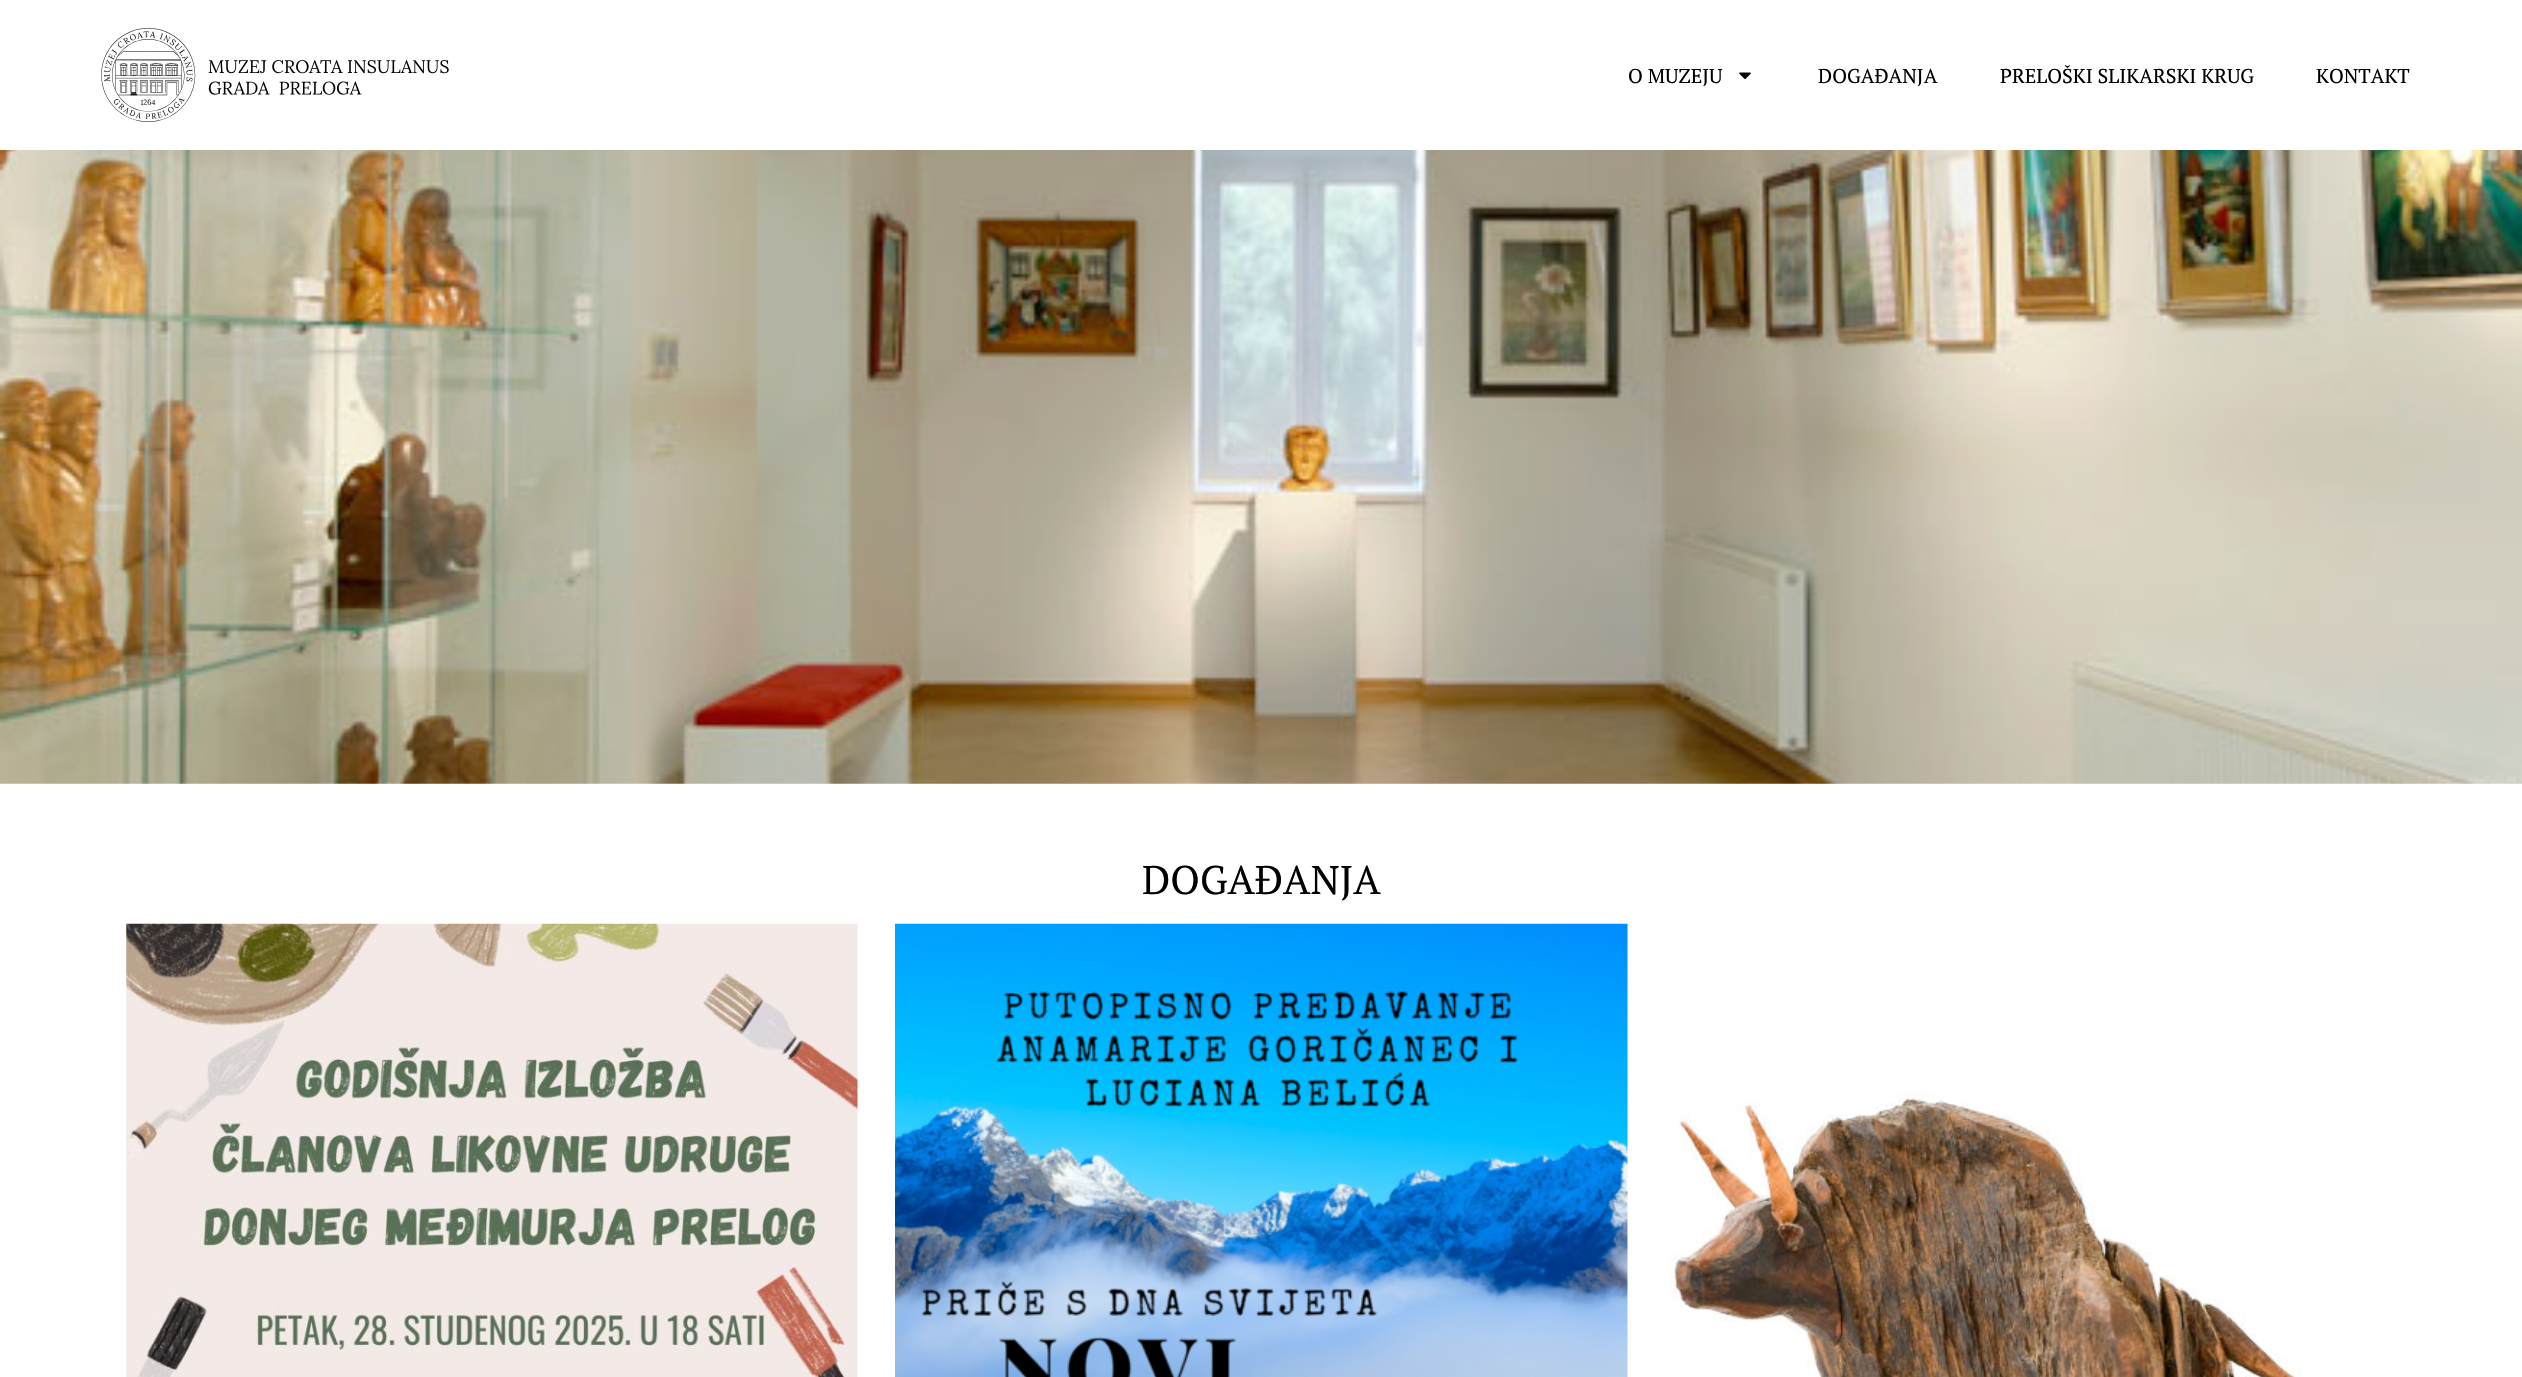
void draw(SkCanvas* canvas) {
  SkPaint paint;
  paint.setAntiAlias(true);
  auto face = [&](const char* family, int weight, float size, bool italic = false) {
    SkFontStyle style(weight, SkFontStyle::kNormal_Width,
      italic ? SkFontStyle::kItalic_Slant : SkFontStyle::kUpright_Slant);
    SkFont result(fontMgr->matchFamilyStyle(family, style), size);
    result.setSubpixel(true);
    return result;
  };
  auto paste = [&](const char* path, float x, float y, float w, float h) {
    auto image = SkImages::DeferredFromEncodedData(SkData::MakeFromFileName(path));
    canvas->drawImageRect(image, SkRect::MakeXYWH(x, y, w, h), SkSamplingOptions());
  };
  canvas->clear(0xffffffff);
  paste("img/1.png", 101, 28, 348, 94);
  paste("img/2.png", 1739, 72, 12, 7);
  paste("img/3.png", 0, 150, 2522, 634);
  paste("img/4.png", 126, 923, 732, 454);
  paste("img/5.png", 895, 923, 733, 454);
  paste("img/6.png", 1668, 1092, 634, 285);
  auto f0 = face("PT Serif", 400, 20);
  paint.setColor(0xff000000);
  {
    const struct { const char* s; float x, y; } items[] = {
      {"O MUZEJU", 1628, 83},
      {"DOGAĐANJA", 1818, 83},
      {"PRELOŠKI SLIKARSKI KRUG", 2000, 83},
      {"KONTAKT", 2316, 83},
    };
    for (auto [s, x, y] : items) {
      canvas->drawString(s, x, y, f0, paint);
    }
  }
  auto f1 = face("PT Serif", 400, 40);
  canvas->drawString("DOGAĐANJA", 1142, 894, f1, paint);
}
